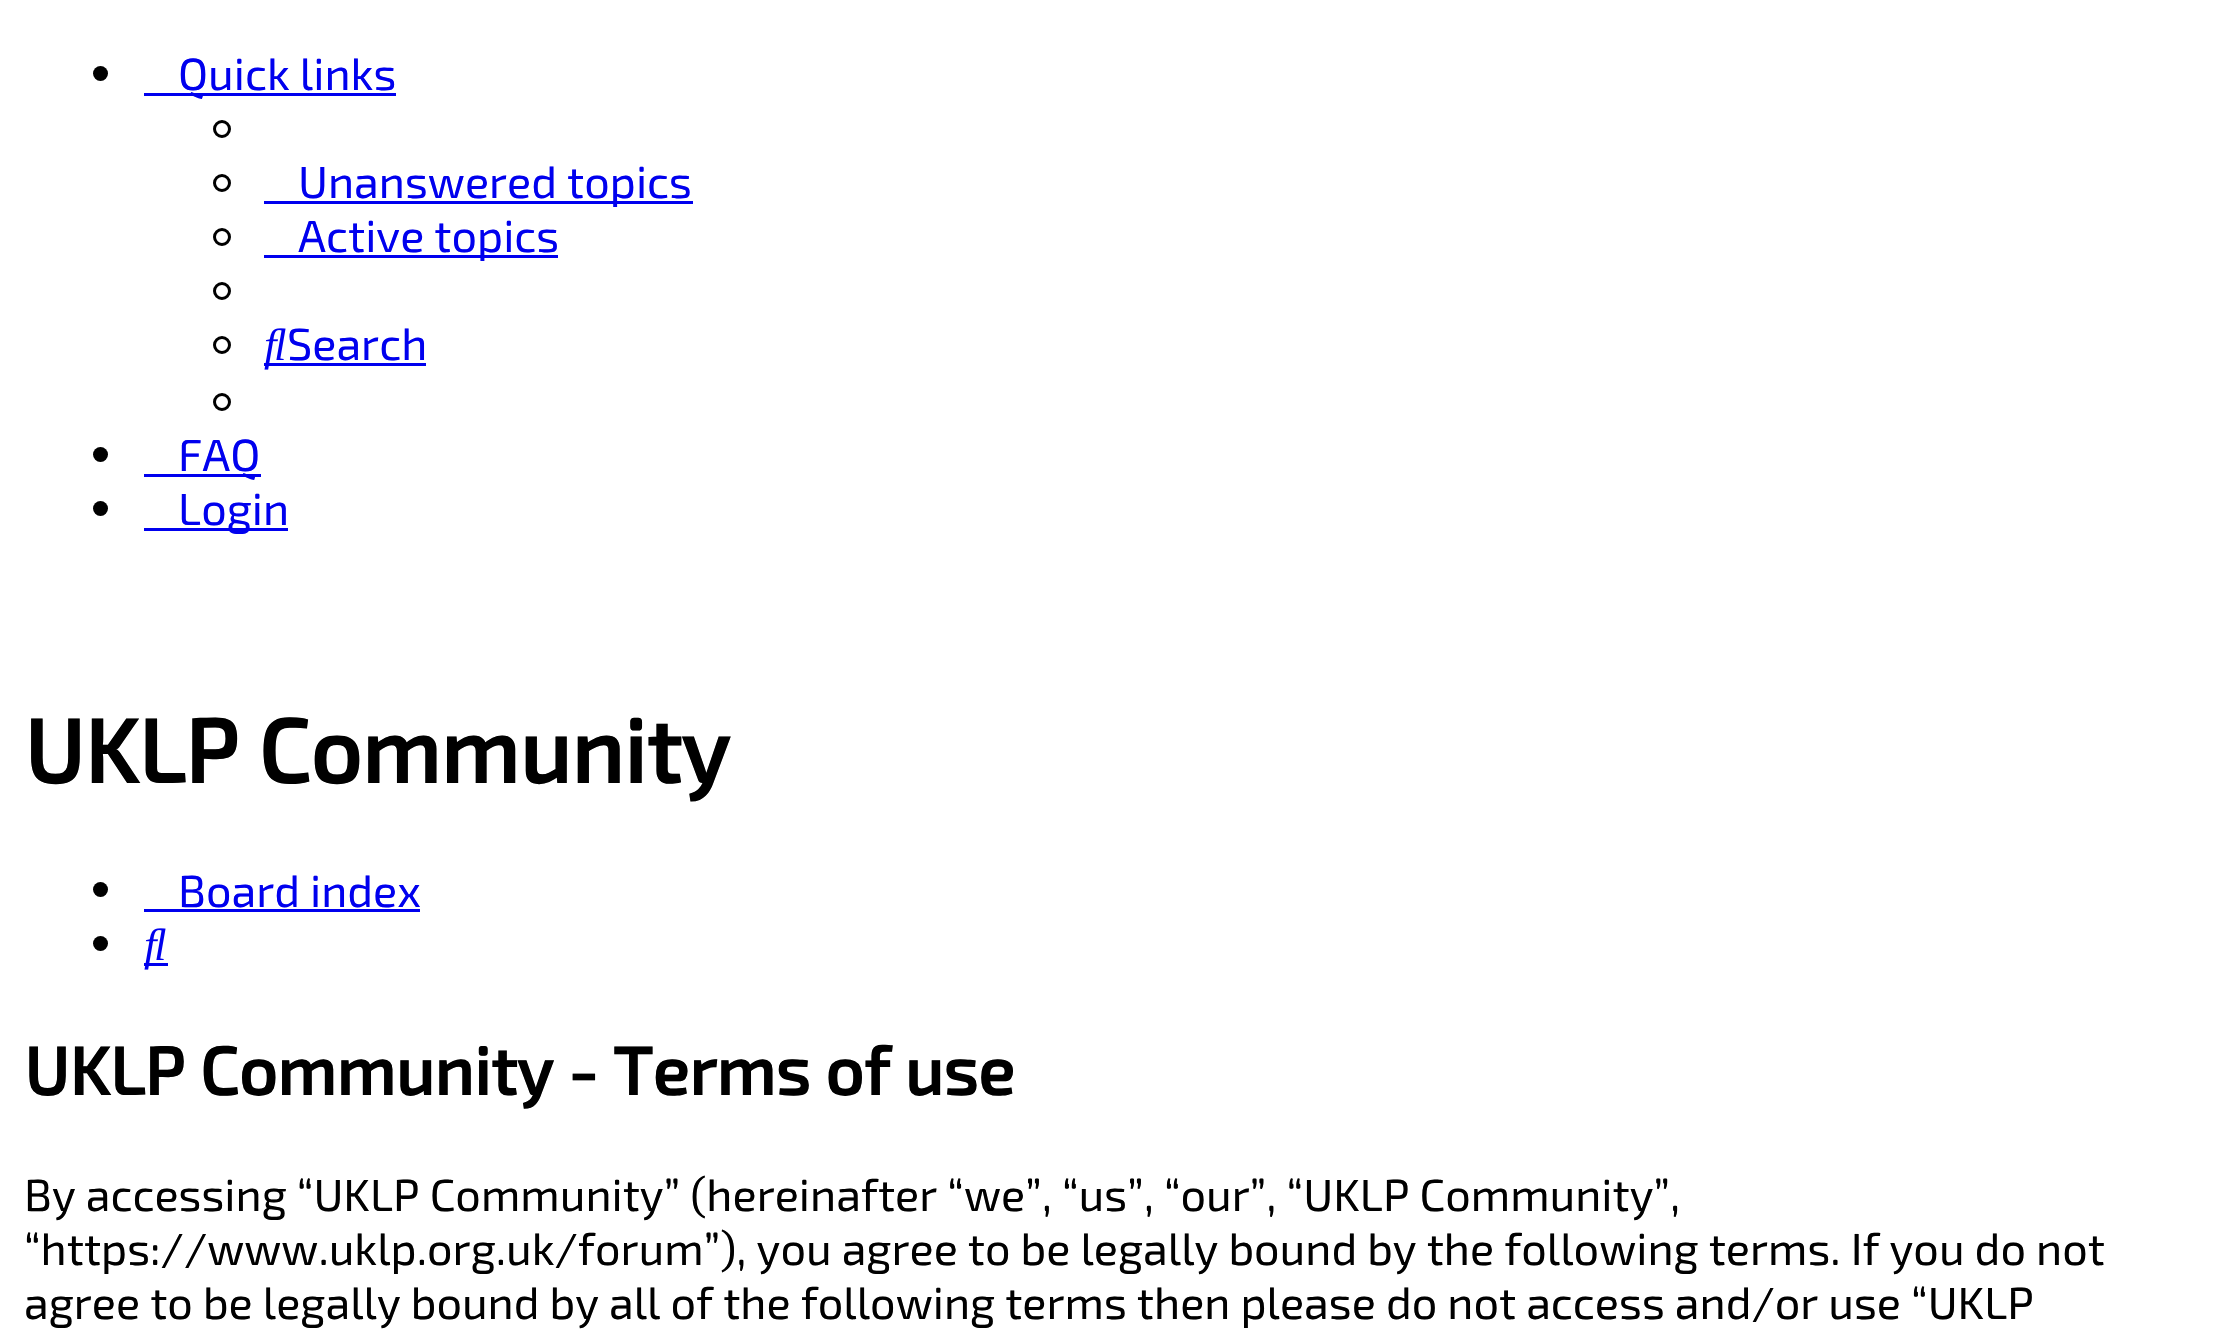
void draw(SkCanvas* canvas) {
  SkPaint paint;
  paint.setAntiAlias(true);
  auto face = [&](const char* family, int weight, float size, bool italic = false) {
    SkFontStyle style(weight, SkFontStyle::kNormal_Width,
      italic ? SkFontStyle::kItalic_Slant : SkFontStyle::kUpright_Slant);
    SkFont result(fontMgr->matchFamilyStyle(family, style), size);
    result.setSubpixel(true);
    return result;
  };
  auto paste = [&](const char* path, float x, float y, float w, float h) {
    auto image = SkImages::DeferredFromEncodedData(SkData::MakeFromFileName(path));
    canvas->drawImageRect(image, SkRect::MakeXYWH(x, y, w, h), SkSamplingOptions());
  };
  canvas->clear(0xffffffff);
  paint.setColor(0xff000000);
  canvas->drawCircle(100.5f, 73.5f, 7.5f, paint);
  paint.setColor(0xff0000ee);
  canvas->drawRect(SkRect::MakeXYWH(144, 93, 252, 3), paint);
  paint.setStroke(true);
  paint.setStrokeWidth(3);
  paint.setColor(0xff000000);
  canvas->drawCircle(222, 129, 7.5f, paint);
  canvas->drawCircle(222, 183, 7.5f, paint);
  paint.setStroke(false);
  paint.setColor(0xff0000ee);
  canvas->drawRect(SkRect::MakeXYWH(264, 201, 429, 3), paint);
  paint.setStroke(true);
  paint.setColor(0xff000000);
  canvas->drawCircle(222, 237, 7.5f, paint);
  paint.setStroke(false);
  paint.setColor(0xff0000ee);
  canvas->drawRect(SkRect::MakeXYWH(264, 255, 294, 3), paint);
  paint.setStroke(true);
  paint.setColor(0xff000000);
  canvas->drawCircle(222, 291, 7.5f, paint);
  canvas->drawCircle(222, 345, 7.5f, paint);
  paint.setStroke(false);
  paint.setColor(0xff0000ee);
  canvas->drawRect(SkRect::MakeXYWH(264, 363, 162, 3), paint);
  paste("img/1.png", 264, 328, 22, 42);
  paint.setStroke(true);
  paint.setColor(0xff000000);
  canvas->drawCircle(222, 402, 7.5f, paint);
  paint.setStroke(false);
  canvas->drawCircle(100.5f, 454.5f, 7.5f, paint);
  paint.setColor(0xff0000ee);
  canvas->drawRect(SkRect::MakeXYWH(144, 474, 117, 3), paint);
  paint.setColor(0xff000000);
  canvas->drawCircle(100.5f, 508.5f, 7.5f, paint);
  paint.setColor(0xff0000ee);
  canvas->drawRect(SkRect::MakeXYWH(144, 528, 144, 3), paint);
  paint.setColor(0xff000000);
  canvas->drawCircle(100.5f, 889.5f, 7.5f, paint);
  paint.setColor(0xff0000ee);
  canvas->drawRect(SkRect::MakeXYWH(144, 909, 276, 3), paint);
  paint.setColor(0xff000000);
  canvas->drawCircle(100.5f, 943.5f, 7.5f, paint);
  paint.setColor(0xff0000ee);
  canvas->drawRect(SkRect::MakeXYWH(144, 963, 24, 3), paint);
  paste("img/1.png", 144, 928, 22, 42);
  auto f0 = face("Exo 2", 400, 45);
  {
    const struct { const char* s; float x, y; } items[] = {
      {"Quick links", 178, 90},
      {"Unanswered topics", 298, 198},
      {"Active topics", 298, 252},
      {"Search", 287, 360},
      {"FAQ", 178, 471},
      {"Login", 178, 525},
    };
    for (auto [s, x, y] : items) {
      canvas->drawString(s, x, y, f0, paint);
    }
  }
  auto f1 = face("Exo 2", 700, 90);
  paint.setColor(0xff000000);
  canvas->drawString("UKLP Community", 24, 783, f1, paint);
  paint.setColor(0xff0000ee);
  canvas->drawString("Board index", 178, 907, f0, paint);
  auto f2 = face("Exo 2", 700, 67.5f);
  paint.setColor(0xff000000);
  canvas->drawString("UKLP Community - Terms of use", 24, 1095, f2, paint);
  {
    const struct { const char* s; float x, y; } items[] = {
      {"By accessing “UKLP Community” (hereinafter “we”, “us”, “our”, “UKLP Community”,", 24, 1211},
      {"“https://www.uklp.org.uk/forum”), you agree to be legally bound by the following terms. If you do not", 24, 1265},
      {"agree to be legally bound by all of the following terms then please do not access and/or use “UKLP", 24, 1319},
    };
    for (auto [s, x, y] : items) {
      canvas->drawString(s, x, y, f0, paint);
    }
  }
}
